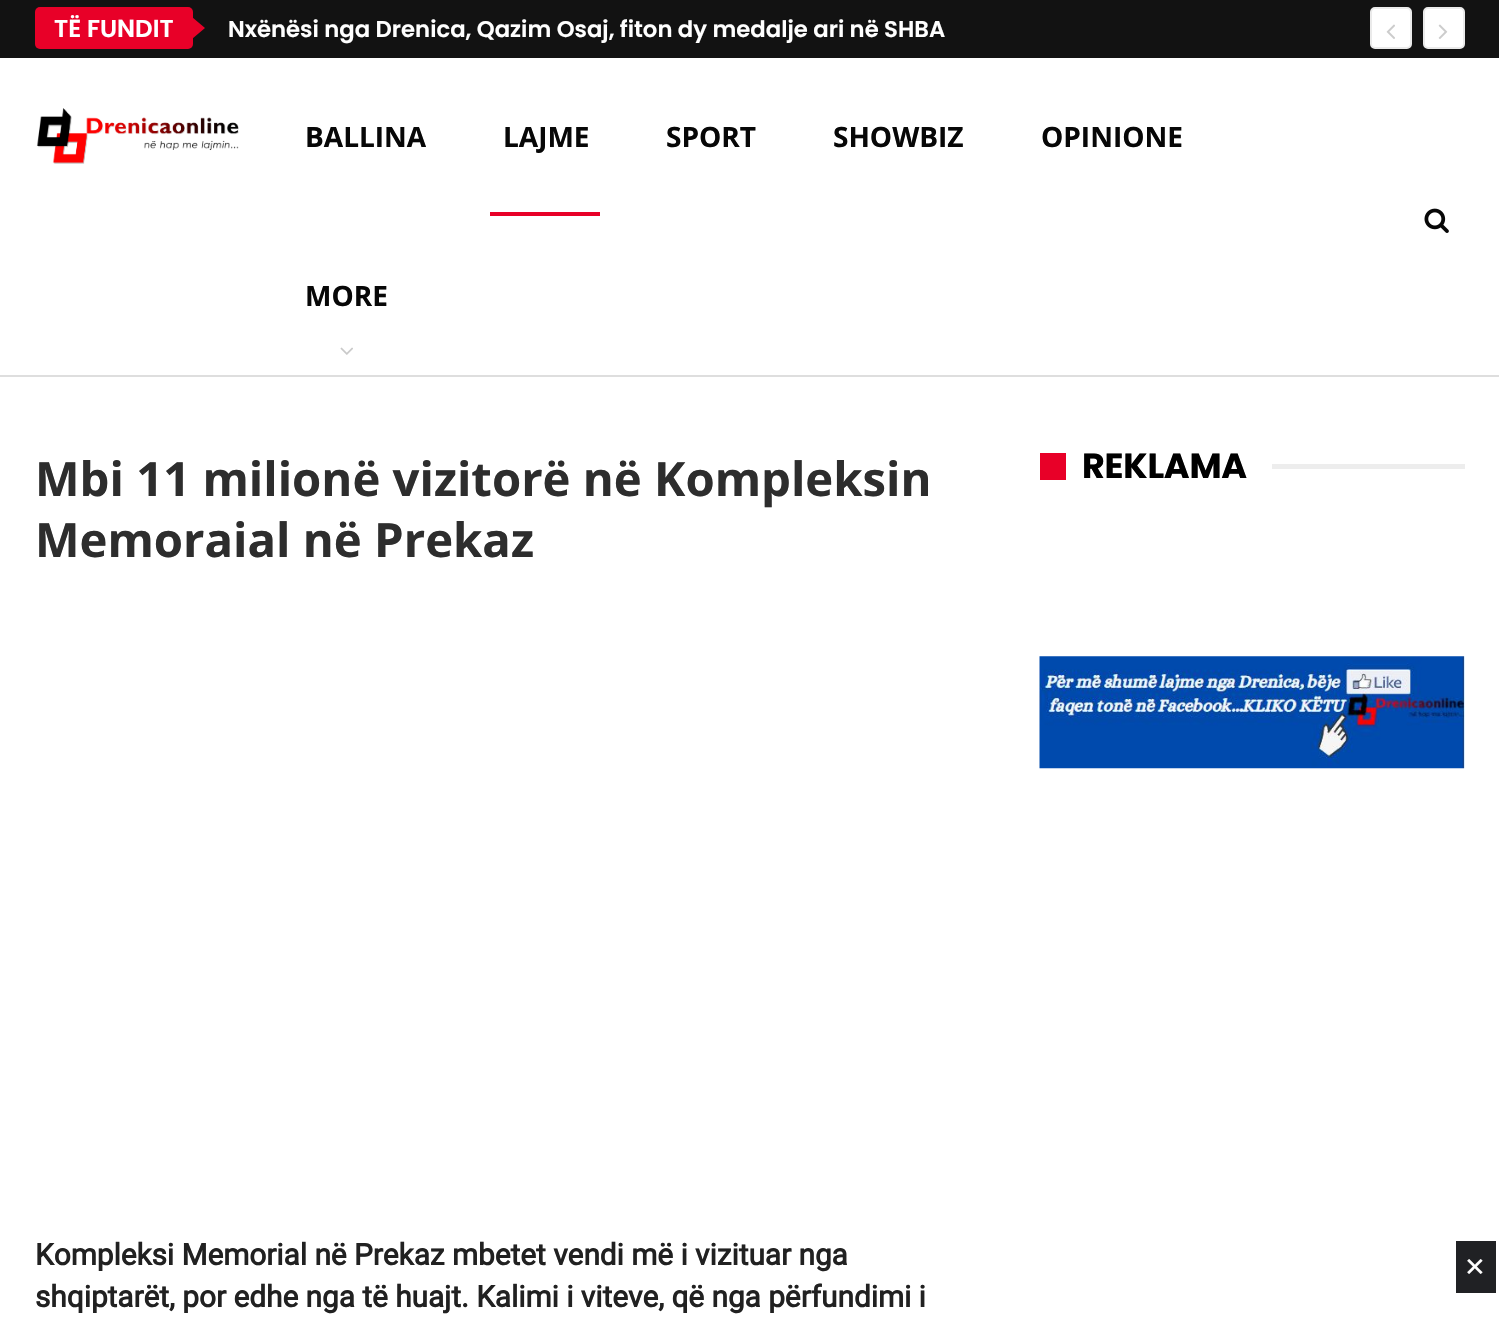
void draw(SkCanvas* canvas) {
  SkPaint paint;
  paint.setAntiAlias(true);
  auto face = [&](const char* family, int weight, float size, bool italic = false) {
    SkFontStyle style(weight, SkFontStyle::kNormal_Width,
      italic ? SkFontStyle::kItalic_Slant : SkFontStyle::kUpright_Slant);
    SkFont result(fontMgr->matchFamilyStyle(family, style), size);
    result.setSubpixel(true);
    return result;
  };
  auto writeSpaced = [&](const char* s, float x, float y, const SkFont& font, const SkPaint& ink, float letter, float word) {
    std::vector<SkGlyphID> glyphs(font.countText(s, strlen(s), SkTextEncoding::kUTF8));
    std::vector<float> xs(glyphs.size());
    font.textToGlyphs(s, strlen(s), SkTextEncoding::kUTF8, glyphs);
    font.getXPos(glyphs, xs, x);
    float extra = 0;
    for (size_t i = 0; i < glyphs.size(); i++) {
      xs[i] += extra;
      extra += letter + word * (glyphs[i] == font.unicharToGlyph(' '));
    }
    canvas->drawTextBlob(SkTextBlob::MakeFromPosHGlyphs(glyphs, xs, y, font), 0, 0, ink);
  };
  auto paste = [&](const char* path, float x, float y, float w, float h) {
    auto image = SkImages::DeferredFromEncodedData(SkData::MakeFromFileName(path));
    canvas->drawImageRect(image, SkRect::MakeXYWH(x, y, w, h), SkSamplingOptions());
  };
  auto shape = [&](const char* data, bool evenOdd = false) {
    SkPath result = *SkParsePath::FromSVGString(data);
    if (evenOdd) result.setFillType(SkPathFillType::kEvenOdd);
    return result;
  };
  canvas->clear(0xffffffff);
  paint.setColor(0xffdedede);
  canvas->drawRect(SkRect::MakeXYWH(0, 375, 1499, 2), paint);
  paint.setColor(0xff121212);
  canvas->drawRect(SkRect::MakeXYWH(0, 0, 1499, 58), paint);
  paint.setColor(0xffe80028);
  canvas->drawRoundRect(SkRect::MakeXYWH(35, 7, 158, 42), 5, 5, paint);
  canvas->drawPath(shape("M192.5 38.5V17.5L205 28Z"), paint);
  paint.setColor(0xffffffff);
  canvas->drawRoundRect(SkRect::MakeXYWH(1371, 8, 40, 40), 4, 4, paint);
  paint.setStroke(true);
  paint.setStrokeWidth(2);
  paint.setColor(0xffeaeaea);
  canvas->drawRoundRect(SkRect::MakeXYWH(1371, 8, 40, 40), 4, 4, paint);
  paste("img/1.png", 1386, 24, 9, 15);
  paint.setStroke(false);
  paint.setColor(0xffffffff);
  canvas->drawRoundRect(SkRect::MakeXYWH(1424, 8, 40, 40), 4, 4, paint);
  paint.setStroke(true);
  paint.setColor(0xffeaeaea);
  canvas->drawRoundRect(SkRect::MakeXYWH(1424, 8, 40, 40), 4, 4, paint);
  paste("img/2.png", 1438, 24, 10, 15);
  paste("img/3.png", 36, 108, 203, 56);
  paint.setStroke(false);
  paint.setColor(0xffe80028);
  canvas->drawRect(SkRect::MakeXYWH(490, 212, 110, 4), paint);
  paste("img/4.png", 340, 347, 13, 8);
  paste("img/5.png", 1424, 208, 25, 25);
  canvas->drawRect(SkRect::MakeXYWH(1040, 453, 26, 27), paint);
  paint.setColor(0xffededed);
  canvas->drawRect(SkRect::MakeXYWH(1272, 464, 193, 5), paint);
  paste("img/6.png", 1039, 656, 426, 113);
  paint.setColor(0xff202124);
  canvas->drawRect(SkRect::MakeXYWH(1456, 1241, 40, 52), paint);
  auto f0 = face("Poppins", 600, 24.5f);
  paint.setColor(0xffffffff);
  canvas->drawString("TË FUNDIT", 54, 37, f0, paint);
  auto f1 = face("Poppins", 600, 22.75f);
  canvas->drawString("Nxënësi nga Drenica, Qazim Osaj, fiton dy medalje ari në SHBA", 228, 37, f1, paint);
  auto f2 = face("Open Sans", 700, 28);
  paint.setColor(0xff070707);
  {
    const struct { const char* s; float x, y; } items[] = {
      {"BALLINA", 305, 147},
      {"LAJME", 503, 147},
      {"SPORT", 666, 147},
      {"SHOWBIZ", 833, 147},
      {"OPINIONE", 1041, 147},
      {"MORE", 305, 306},
    };
    for (auto [s, x, y] : items) {
      canvas->drawString(s, x, y, f2, paint);
    }
  }
  auto f3 = face("Open Sans", 700, 47.25f);
  paint.setColor(0xff2d2d2d);
  canvas->drawString("Mbi 11 milionë vizitorë në Kompleksin", 35, 496, f3, paint);
  canvas->drawString("Memoraial në Prekaz", 35, 557, f3, paint);
  auto f4 = face("Roboto", 700, 29.75f);
  paint.setColor(0xff212121);
  canvas->drawString("Kompleksi Memorial në Prekaz mbetet vendi më i vizituar nga", 35, 1265, f4, paint);
  canvas->drawString("shqiptarët, por edhe nga të huajt. Kalimi i viteve, që nga përfundimi i", 35, 1307, f4, paint);
  auto f5 = face("Poppins", 700, 35);
  paint.setColor(0xff000000);
  writeSpaced("REKLAMA", 1082, 478, f5, paint, -0.25f, 0);
  auto f6 = face("DejaVu Sans", 400, 26);
  paint.setColor(0xffffffff);
  canvas->drawString("✕", 1464, 1276, f6, paint);
}
